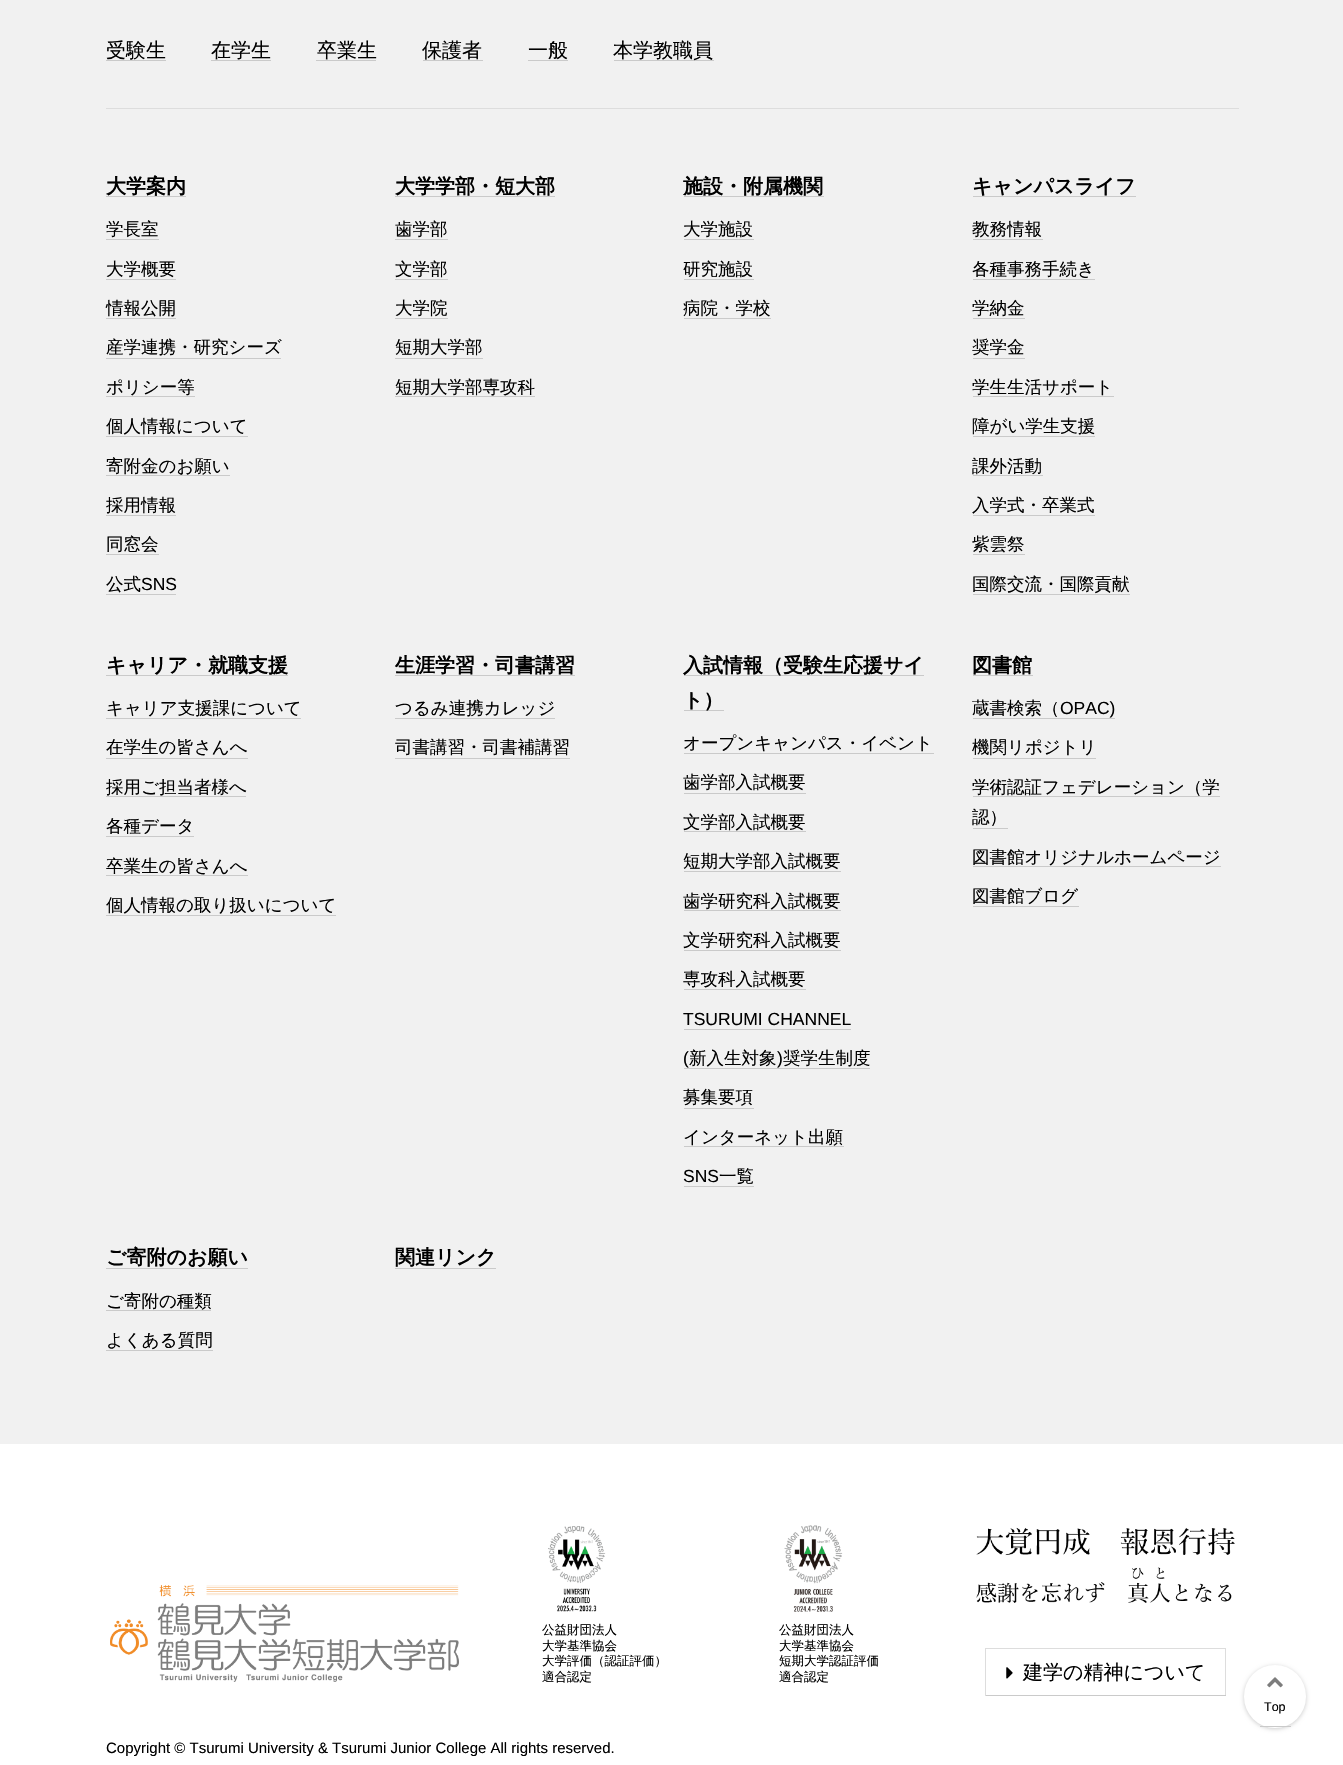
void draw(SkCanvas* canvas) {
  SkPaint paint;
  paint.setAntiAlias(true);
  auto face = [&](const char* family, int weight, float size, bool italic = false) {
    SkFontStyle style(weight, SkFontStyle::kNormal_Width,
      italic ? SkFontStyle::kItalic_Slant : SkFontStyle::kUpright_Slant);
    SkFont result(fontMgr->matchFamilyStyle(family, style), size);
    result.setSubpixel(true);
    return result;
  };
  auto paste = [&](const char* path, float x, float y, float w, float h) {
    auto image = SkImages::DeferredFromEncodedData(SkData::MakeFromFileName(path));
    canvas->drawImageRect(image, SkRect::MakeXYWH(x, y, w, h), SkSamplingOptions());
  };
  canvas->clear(0xffffffff);
  {
    const struct { float x, y, w, h; SkColor color; } items[] = {
      {0, 0, 1343, 1444, 0xfff1f1f1},
      {106, 108, 1133, 1, 0xffdddddd},
      {106, 60, 60, 1, 0xffcacaca},
      {211, 60, 60, 1, 0xffcacaca},
      {316, 60, 60, 1, 0xffcacaca},
      {423, 60, 60, 1, 0xffcacaca},
      {528, 60, 40, 1, 0xffcacaca},
      {614, 60, 100, 1, 0xffcacaca},
      {106, 196, 80, 1, 0xffcacaca},
      {106, 239, 53, 1, 0xffcacaca},
      {106, 279, 70, 1, 0xffcacaca},
      {106, 318, 70, 1, 0xffcacaca},
      {106, 358, 175, 1, 0xffcacaca},
      {106, 396, 89, 1, 0xffcacaca},
      {106, 436, 142, 1, 0xffcacaca},
      {106, 475, 124, 1, 0xffcacaca},
      {106, 515, 70, 1, 0xffcacaca},
      {106, 554, 53, 1, 0xffcacaca},
      {106, 594, 70, 1, 0xffcacaca},
      {395, 196, 160, 1, 0xffcacaca},
      {395, 239, 53, 1, 0xffcacaca},
      {395, 279, 53, 1, 0xffcacaca},
      {395, 318, 53, 1, 0xffcacaca},
      {395, 358, 88, 1, 0xffcacaca},
      {395, 396, 140, 1, 0xffcacaca},
      {684, 196, 140, 1, 0xffcacaca},
      {684, 239, 70, 1, 0xffcacaca},
      {684, 279, 70, 1, 0xffcacaca},
      {684, 318, 87, 1, 0xffcacaca},
      {973, 196, 163, 1, 0xffcacaca},
      {973, 239, 70, 1, 0xffcacaca},
      {973, 279, 122, 1, 0xffcacaca},
      {973, 318, 52, 1, 0xffcacaca},
      {973, 358, 52, 1, 0xffcacaca},
      {973, 396, 141, 1, 0xffcacaca},
      {973, 436, 122, 1, 0xffcacaca},
      {973, 475, 70, 1, 0xffcacaca},
      {973, 515, 122, 1, 0xffcacaca},
      {973, 554, 52, 1, 0xffcacaca},
      {973, 594, 157, 1, 0xffcacaca},
      {106, 675, 182, 1, 0xffcacaca},
      {106, 718, 195, 1, 0xffcacaca},
      {106, 758, 142, 1, 0xffcacaca},
      {106, 796, 140, 1, 0xffcacaca},
      {106, 836, 88, 1, 0xffcacaca},
      {106, 875, 142, 1, 0xffcacaca},
      {106, 915, 230, 1, 0xffcacaca},
      {395, 675, 180, 1, 0xffcacaca},
      {395, 718, 160, 1, 0xffcacaca},
      {395, 758, 175, 1, 0xffcacaca},
      {684, 675, 240, 1, 0xffcacaca},
      {684, 710, 40, 1, 0xffcacaca},
      {684, 753, 250, 1, 0xffcacaca},
      {684, 793, 122, 1, 0xffcacaca},
      {684, 831, 122, 1, 0xffcacaca},
      {684, 871, 157, 1, 0xffcacaca},
      {684, 910, 157, 1, 0xffcacaca},
      {684, 950, 157, 1, 0xffcacaca},
      {684, 989, 122, 1, 0xffcacaca},
      {684, 1029, 167, 1, 0xffcacaca},
      {684, 1068, 186, 1, 0xffcacaca},
      {684, 1108, 70, 1, 0xffcacaca},
      {684, 1146, 160, 1, 0xffcacaca},
      {684, 1186, 70, 1, 0xffcacaca},
      {973, 675, 60, 1, 0xffcacaca},
      {973, 718, 142, 1, 0xffcacaca},
      {973, 758, 123, 1, 0xffcacaca},
      {973, 796, 247, 1, 0xffcacaca},
      {973, 828, 35, 1, 0xffcacaca},
      {973, 866, 248, 1, 0xffcacaca},
      {973, 906, 106, 1, 0xffcacaca},
      {106, 1268, 142, 1, 0xffcacaca},
      {106, 1310, 105, 1, 0xffcacaca},
      {106, 1350, 107, 1, 0xffcacaca},
      {395, 1268, 101, 1, 0xffcacaca},
    };
    for (auto [x, y, w, h, color] : items) {
      paint.setColor(color);
      canvas->drawRect(SkRect::MakeXYWH(x, y, w, h), paint);
    }
  }
  paste("img/1.png", 110, 1585, 349, 97);
  paste("img/2.png", 548, 1526, 58, 86);
  paste("img/3.png", 784, 1525, 59, 87);
  paste("img/4.png", 976, 1527, 259, 76);
  {
    const struct { float x, y, w, h; SkColor color; } items[] = {
      {985, 1648, 241, 1, 0xffdddddd},
      {1225, 1648, 1, 48, 0xffdddddd},
      {985, 1695, 241, 1, 0xffcacaca},
      {985, 1648, 1, 48, 0xffdddddd},
    };
    for (auto [x, y, w, h, color] : items) {
      paint.setColor(color);
      canvas->drawRect(SkRect::MakeXYWH(x, y, w, h), paint);
    }
  }
  paste("img/5.png", 1006, 1667, 7, 12);
  paint.setColor(0x33000000);
  paint.setMaskFilter(SkMaskFilter::MakeBlur(kNormal_SkBlurStyle, 2));
  canvas->drawRoundRect(SkRect::MakeXYWH(1244, 1666, 62, 63), 31, 31, paint);
  paint.setMaskFilter(nullptr);
  paint.setColor(0xffffffff);
  canvas->drawRoundRect(SkRect::MakeXYWH(1244, 1665, 62, 63), 31, 31, paint);
  paint.setColor(0xffcacaca);
  canvas->drawRect(SkRect::MakeXYWH(1260, 1726, 31, 1), paint);
  paste("img/6.png", 1267, 1677, 16, 11);
  auto f0 = face("WenQuanYi Zen Hei", 500, 20);
  paint.setColor(0xff000000);
  {
    const struct { const char* s; float x, y; } items[] = {
      {"受験生", 106, 57},
      {"在学生", 211, 57},
      {"卒業生", 317, 57},
      {"保護者", 422, 57},
      {"一般", 528, 57},
      {"本学教職員", 613, 57},
    };
    for (auto [s, x, y] : items) {
      canvas->drawString(s, x, y, f0, paint);
    }
  }
  auto f1 = face("WenQuanYi Zen Hei", 700, 20);
  canvas->drawString("大学案内", 106, 193, f1, paint);
  auto f2 = face("WenQuanYi Zen Hei", 500, 17.5f);
  {
    const struct { const char* s; float x, y; } items[] = {
      {"学長室", 106, 235},
      {"大学概要", 106, 275},
      {"情報公開", 106, 314},
      {"産学連携・研究シーズ", 106, 353},
      {"ポリシー等", 106, 393},
      {"個人情報について", 106, 432},
      {"寄附金のお願い", 106, 472},
      {"採用情報", 106, 511},
      {"同窓会", 106, 550},
      {"公式", 106, 590},
    };
    for (auto [s, x, y] : items) {
      canvas->drawString(s, x, y, f2, paint);
    }
  }
  auto f3 = face("Liberation Sans", 400, 17.5f);
  canvas->drawString("SNS", 141, 590, f3, paint);
  canvas->drawString("大学学部・短大部", 395, 193, f1, paint);
  {
    const struct { const char* s; float x, y; } items[] = {
      {"歯学部", 395, 235},
      {"文学部", 395, 275},
      {"大学院", 395, 314},
      {"短期大学部", 395, 353},
      {"短期大学部専攻科", 395, 393},
    };
    for (auto [s, x, y] : items) {
      canvas->drawString(s, x, y, f2, paint);
    }
  }
  canvas->drawString("施設・附属機関", 683, 193, f1, paint);
  {
    const struct { const char* s; float x, y; } items[] = {
      {"大学施設", 683, 235},
      {"研究施設", 683, 275},
      {"病院・学校", 683, 314},
    };
    for (auto [s, x, y] : items) {
      canvas->drawString(s, x, y, f2, paint);
    }
  }
  canvas->drawString("キャンパスライフ", 972, 193, f1, paint);
  {
    const struct { const char* s; float x, y; } items[] = {
      {"教務情報", 972, 235},
      {"各種事務手続き", 972, 275},
      {"学納金", 972, 314},
      {"奨学金", 972, 353},
      {"学生生活サポート", 972, 393},
      {"障がい学生支援", 972, 432},
      {"課外活動", 972, 472},
      {"入学式・卒業式", 972, 511},
      {"紫雲祭", 972, 550},
      {"国際交流・国際貢献", 972, 590},
    };
    for (auto [s, x, y] : items) {
      canvas->drawString(s, x, y, f2, paint);
    }
  }
  canvas->drawString("キャリア・就職支援", 106, 672, f1, paint);
  {
    const struct { const char* s; float x, y; } items[] = {
      {"キャリア支援課について", 106, 714},
      {"在学生の皆さんへ", 106, 753},
      {"採用ご担当者様へ", 106, 793},
      {"各種データ", 106, 832},
      {"卒業生の皆さんへ", 106, 872},
      {"個人情報の取り扱いについて", 106, 911},
    };
    for (auto [s, x, y] : items) {
      canvas->drawString(s, x, y, f2, paint);
    }
  }
  canvas->drawString("生涯学習・司書講習", 395, 672, f1, paint);
  canvas->drawString("つるみ連携カレッジ", 395, 714, f2, paint);
  canvas->drawString("司書講習・司書補講習", 395, 753, f2, paint);
  canvas->drawString("入試情報（受験生応援サイ", 683, 672, f1, paint);
  canvas->drawString("ト）", 683, 707, f1, paint);
  {
    const struct { const char* s; float x, y; } items[] = {
      {"オープンキャンパス・イベント", 683, 749},
      {"歯学部入試概要", 683, 788},
      {"文学部入試概要", 683, 828},
      {"短期大学部入試概要", 683, 867},
      {"歯学研究科入試概要", 683, 907},
      {"文学研究科入試概要", 683, 946},
      {"専攻科入試概要", 683, 985},
    };
    for (auto [s, x, y] : items) {
      canvas->drawString(s, x, y, f2, paint);
    }
  }
  canvas->drawString("TSURUMI CHANNEL", 683, 1025, f3, paint);
  canvas->drawString("(", 683, 1064, f3, paint);
  canvas->drawString("新入生対象", 689, 1064, f2, paint);
  canvas->drawString(")", 777, 1064, f3, paint);
  {
    const struct { const char* s; float x, y; } items[] = {
      {"奨学生制度", 783, 1064},
      {"募集要項", 683, 1103},
      {"インターネット出願", 683, 1143},
    };
    for (auto [s, x, y] : items) {
      canvas->drawString(s, x, y, f2, paint);
    }
  }
  canvas->drawString("SNS", 683, 1182, f3, paint);
  canvas->drawString("一覧", 719, 1182, f2, paint);
  canvas->drawString("図書館", 972, 672, f1, paint);
  canvas->drawString("蔵書検索（", 972, 714, f2, paint);
  canvas->drawString("OPAC)", 1060, 714, f3, paint);
  {
    const struct { const char* s; float x, y; } items[] = {
      {"機関リポジトリ", 972, 753},
      {"学術認証フェデレーション（学", 972, 793},
      {"認）", 972, 823},
      {"図書館オリジナルホームページ", 972, 863},
      {"図書館ブログ", 972, 902},
    };
    for (auto [s, x, y] : items) {
      canvas->drawString(s, x, y, f2, paint);
    }
  }
  canvas->drawString("ご寄附のお願い", 106, 1264, f1, paint);
  canvas->drawString("ご寄附の種類", 106, 1307, f2, paint);
  canvas->drawString("よくある質問", 106, 1346, f2, paint);
  canvas->drawString("関連リンク", 395, 1264, f1, paint);
  auto f4 = face("WenQuanYi Zen Hei", 500, 12.5f);
  {
    const struct { const char* s; float x, y; } items[] = {
      {"公益財団法人", 542, 1634},
      {"大学基準協会", 542, 1650},
      {"大学評価（認証評価）", 542, 1665},
      {"適合認定", 542, 1681},
      {"公益財団法人", 779, 1634},
      {"大学基準協会", 779, 1650},
      {"短期大学認証評価", 779, 1665},
      {"適合認定", 779, 1681},
    };
    for (auto [s, x, y] : items) {
      canvas->drawString(s, x, y, f4, paint);
    }
  }
  canvas->drawString("建学の精神について", 1023, 1679, f0, paint);
  auto f5 = face("Liberation Sans", 400, 15);
  canvas->drawString("Copyright © Tsurumi University & Tsurumi Junior College All rights reserved.", 106, 1753, f5, paint);
  auto f6 = face("Liberation Sans", 400, 12.5f);
  canvas->drawString("Top", 1264, 1711, f6, paint);
}
